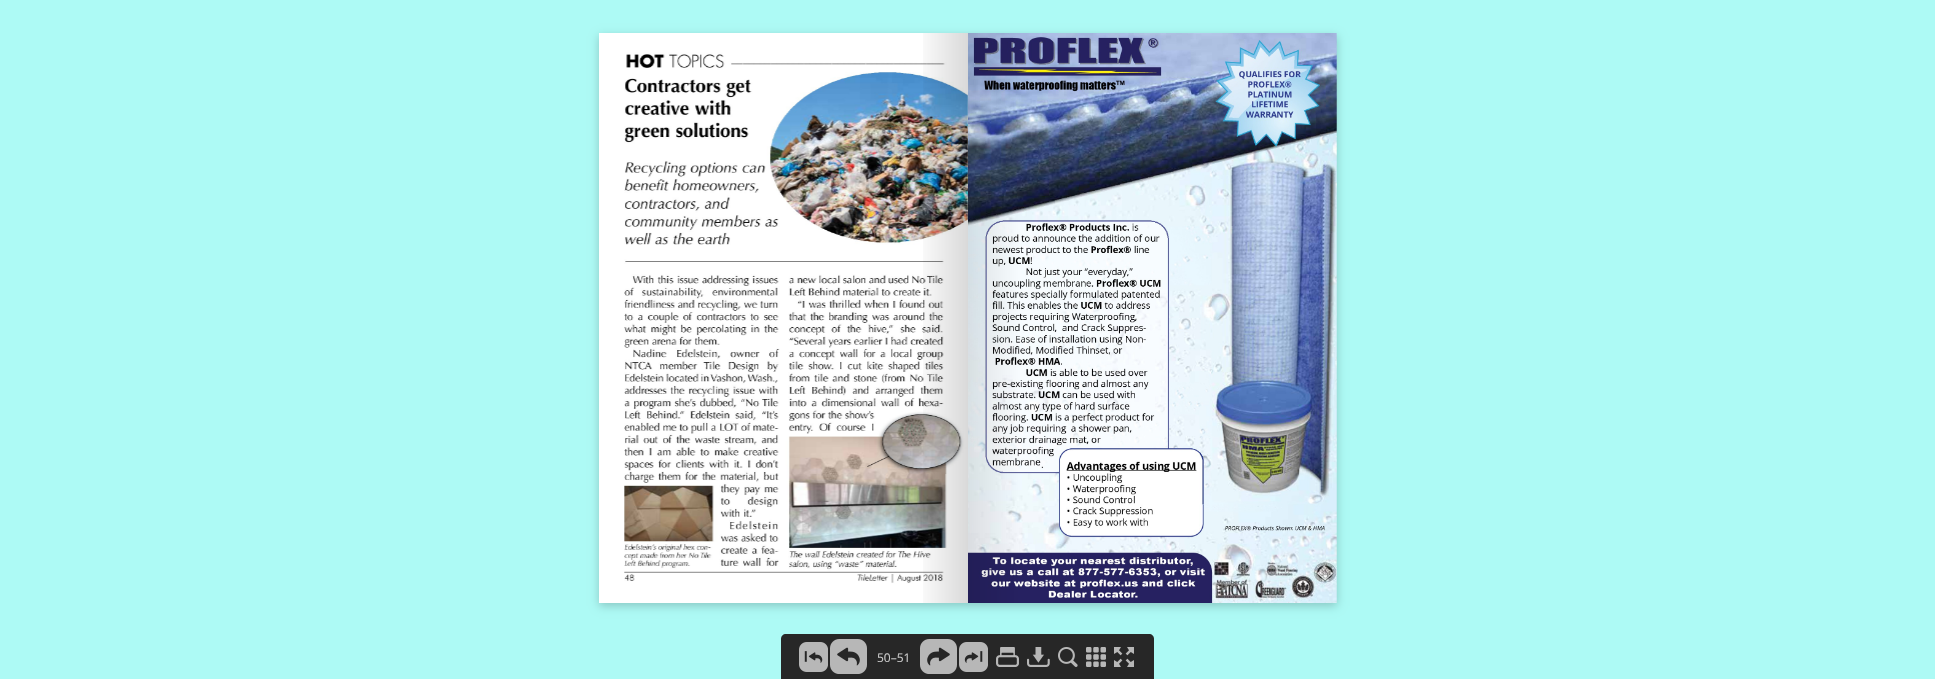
void draw(SkCanvas* canvas) {
  SkPaint paint;
  paint.setAntiAlias(true);
  auto face = [&](const char* family, int weight, float size, bool italic = false) {
    SkFontStyle style(weight, SkFontStyle::kNormal_Width,
      italic ? SkFontStyle::kItalic_Slant : SkFontStyle::kUpright_Slant);
    SkFont result(fontMgr->matchFamilyStyle(family, style), size);
    result.setSubpixel(true);
    return result;
  };
  auto paste = [&](const char* path, float x, float y, float w, float h) {
    auto image = SkImages::DeferredFromEncodedData(SkData::MakeFromFileName(path));
    canvas->drawImageRect(image, SkRect::MakeXYWH(x, y, w, h), SkSamplingOptions());
  };
  auto shape = [&](const char* data, bool evenOdd = false) {
    SkPath result = *SkParsePath::FromSVGString(data);
    if (evenOdd) result.setFillType(SkPathFillType::kEvenOdd);
    return result;
  };
  canvas->clear(0xffadfaf5);
  paint.setColor(0xff8ac8c4);
  paint.setMaskFilter(SkMaskFilter::MakeBlur(kNormal_SkBlurStyle, 4.5f));
  canvas->drawRect(SkRect::MakeXYWH(599, 36, 738, 570), paint);
  paint.setMaskFilter(nullptr);
  paint.setColor(0xffffffff);
  canvas->drawRect(SkRect::MakeXYWH(599, 33, 369, 570), paint);
  paste("img/1.png", 624, 33, 344, 570);
  {
    const SkColor colors[] = {0x00000000, 0x26000000};
    const float stops[] = {0, 1};
    const SkPoint ends[] = {{915, 318}, {968, 318}};
    paint.setShader(SkGradientShader::MakeLinear(ends, colors, stops, 2, SkTileMode::kClamp));
    paint.setAlpha(255);
  }
  canvas->drawRect(SkRect::MakeXYWH(923, 33, 45, 570), paint);
  paste("img/2.png", 968, 33, 369, 570);
  paint.setShader(nullptr);
  paint.setColor(0xff272727);
  canvas->drawPath(shape("M786 634H1149C1152 634 1154 636 1154 639V679H781V639C781 636 783 634 786 634Z"), paint);
  paste("img/3.png", 799, 642, 29, 30);
  paste("img/4.png", 830, 639, 37, 35);
  paste("img/5.png", 920, 639, 37, 35);
  paste("img/6.png", 959, 642, 29, 30);
  paste("img/7.png", 996, 647, 23, 20);
  paste("img/8.png", 1027, 647, 23, 20);
  paste("img/9.png", 1058, 647, 20, 20);
  paste("img/10.png", 1086, 647, 20, 20);
  paste("img/11.png", 1114, 647, 20, 20);
  auto f0 = face("Open Sans", 400, 12);
  paint.setColor(0xffcccccc);
  canvas->drawString("50–51", 877, 662, f0, paint);
}
